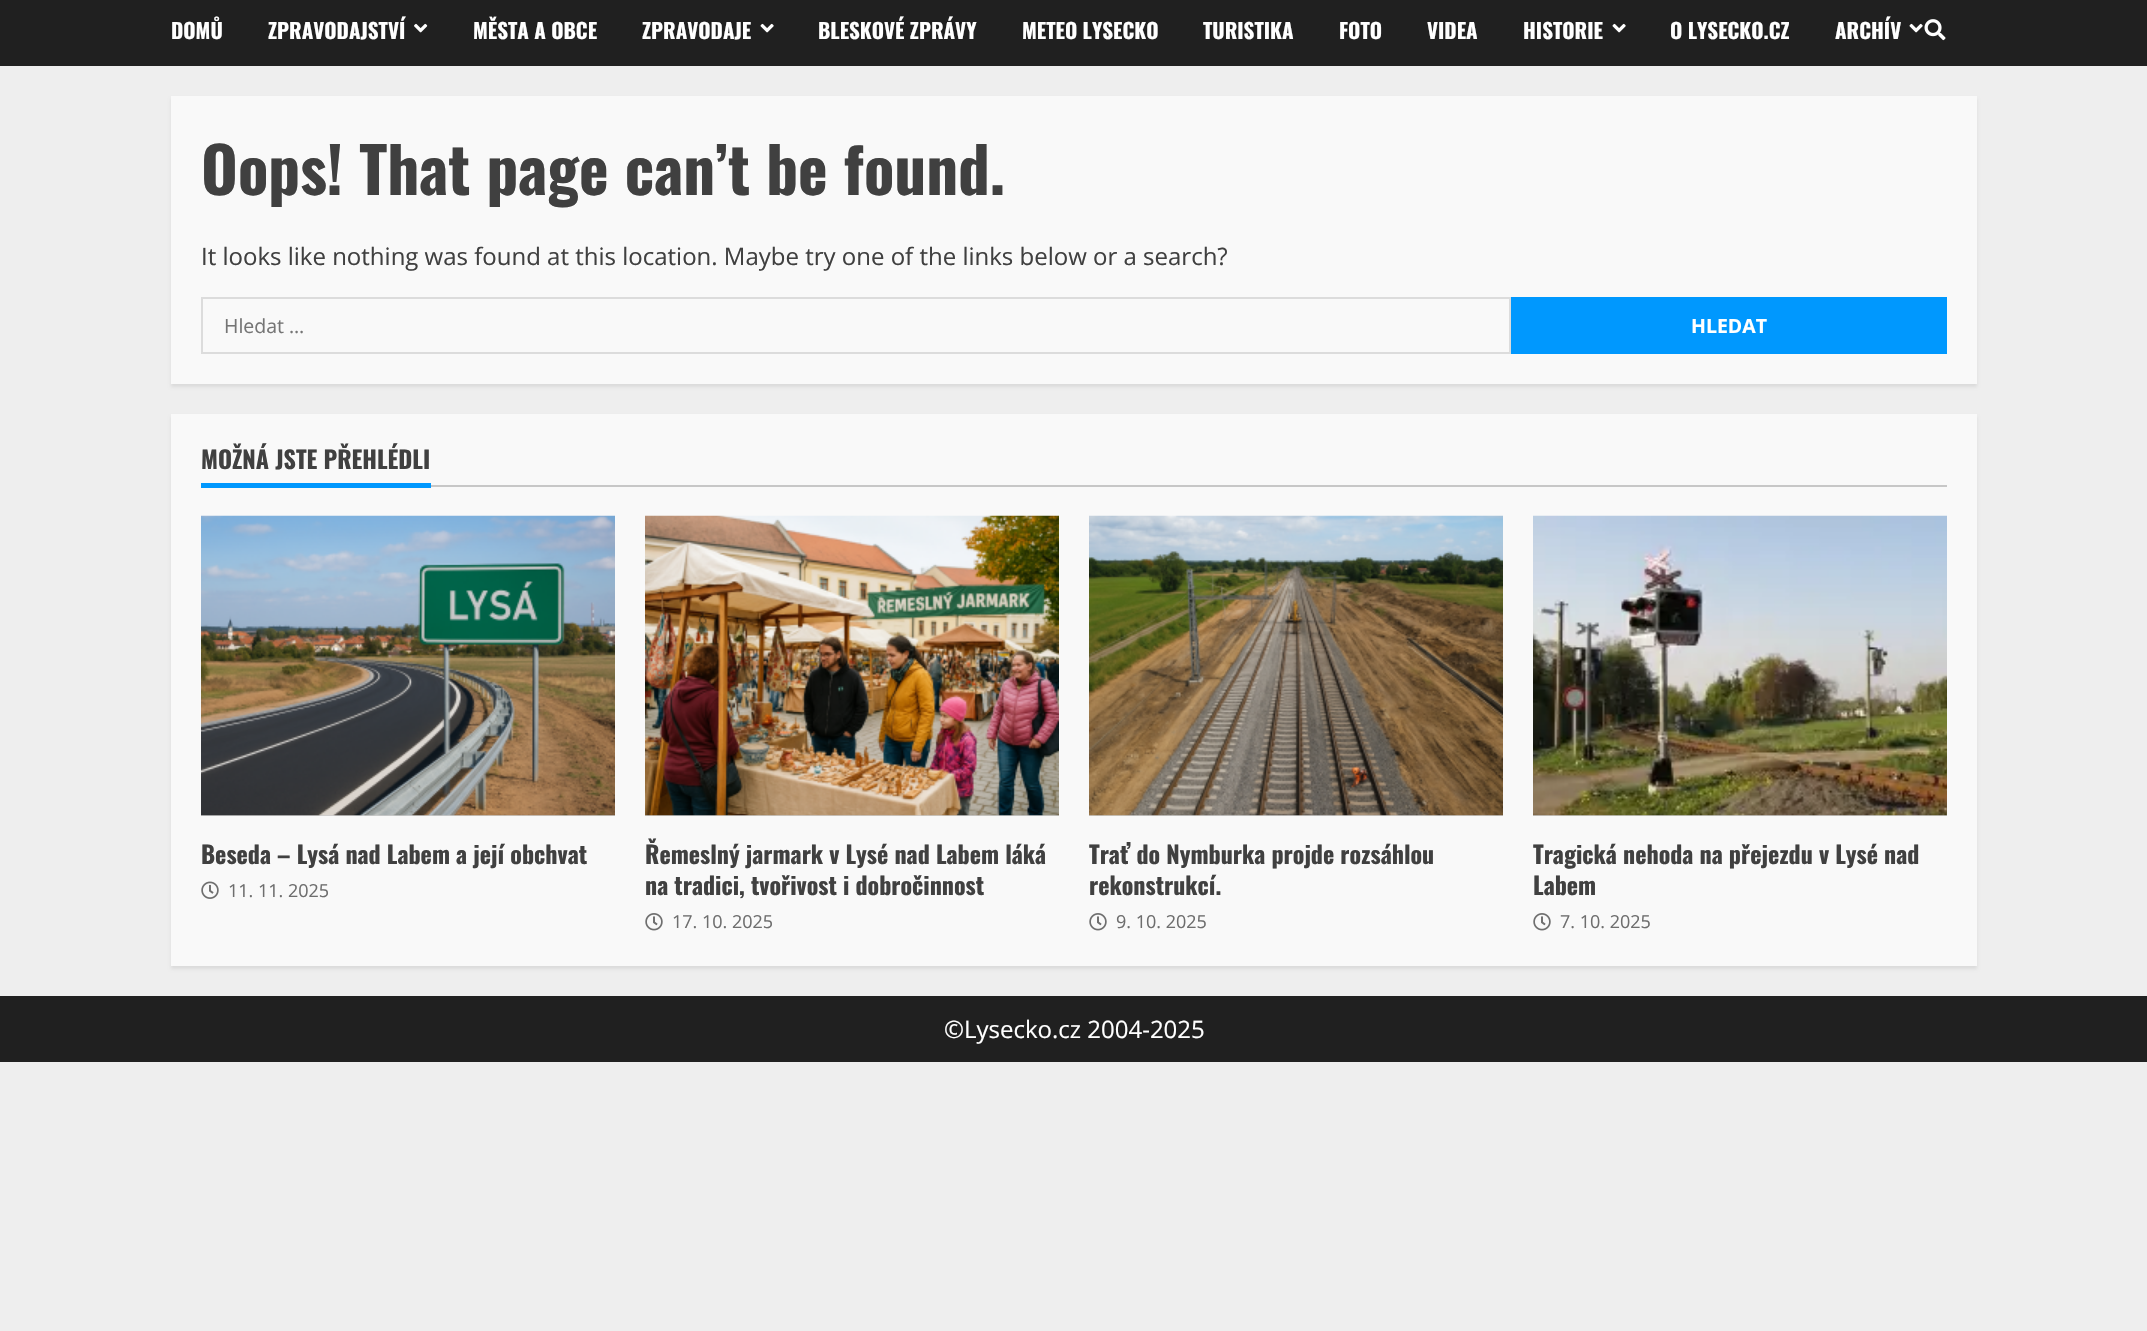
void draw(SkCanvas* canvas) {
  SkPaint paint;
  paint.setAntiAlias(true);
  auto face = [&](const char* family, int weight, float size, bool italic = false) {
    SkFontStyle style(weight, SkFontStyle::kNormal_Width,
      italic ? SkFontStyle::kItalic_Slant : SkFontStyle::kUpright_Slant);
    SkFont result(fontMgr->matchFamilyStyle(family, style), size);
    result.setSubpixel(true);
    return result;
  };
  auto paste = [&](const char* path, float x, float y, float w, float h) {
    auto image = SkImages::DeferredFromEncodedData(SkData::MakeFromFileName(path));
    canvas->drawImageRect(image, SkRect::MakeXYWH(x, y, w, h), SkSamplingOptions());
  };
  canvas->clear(0xffeeeeee);
  paint.setColor(0xff202020);
  canvas->drawRect(SkRect::MakeXYWH(0, 0, 2147, 66), paint);
  paste("img/1.png", 414, 23, 14, 10);
  paste("img/2.png", 760, 23, 14, 10);
  paste("img/2.png", 1612, 23, 14, 10);
  paste("img/2.png", 1909, 23, 14, 10);
  paste("img/3.png", 1924, 19, 22, 22);
  paint.setColor(0x14000000);
  paint.setMaskFilter(SkMaskFilter::MakeBlur(kNormal_SkBlurStyle, 1.5f));
  canvas->drawRect(SkRect::MakeXYWH(171, 99, 1806, 288), paint);
  paint.setMaskFilter(nullptr);
  paint.setColor(0xfff9f9f9);
  canvas->drawRect(SkRect::MakeXYWH(171, 96, 1806, 288), paint);
  paint.setStroke(true);
  paint.setStrokeWidth(2);
  paint.setColor(0xffdcdcdc);
  canvas->drawRect(SkRect::MakeXYWH(202, 298, 1308, 55), paint);
  paint.setStroke(false);
  paint.setColor(0xff0098fe);
  canvas->drawRect(SkRect::MakeXYWH(1511, 297, 436, 57), paint);
  paint.setColor(0x14000000);
  paint.setMaskFilter(SkMaskFilter::MakeBlur(kNormal_SkBlurStyle, 1.5f));
  canvas->drawRect(SkRect::MakeXYWH(171, 417, 1806, 552), paint);
  paint.setMaskFilter(nullptr);
  {
    const struct { float x, y, w, h; SkColor color; } items[] = {
      {171, 414, 1806, 552, 0xfff9f9f9},
      {431, 485, 1516, 2, 0xffc7c7c7},
      {201, 483, 230, 5, 0xff0098fe},
      {201, 815, 414, 1, 0xffcccccc},
    };
    for (auto [x, y, w, h, color] : items) {
      paint.setColor(color);
      canvas->drawRect(SkRect::MakeXYWH(x, y, w, h), paint);
    }
  }
  paste("img/4.png", 201, 515, 414, 301);
  paste("img/5.png", 201, 881, 18, 18);
  canvas->drawRect(SkRect::MakeXYWH(645, 815, 414, 1), paint);
  paste("img/6.png", 645, 515, 414, 301);
  paste("img/7.png", 645, 913, 18, 18);
  canvas->drawRect(SkRect::MakeXYWH(1089, 815, 414, 1), paint);
  paste("img/8.png", 1089, 515, 414, 301);
  paste("img/7.png", 1089, 913, 18, 18);
  canvas->drawRect(SkRect::MakeXYWH(1533, 815, 414, 1), paint);
  paste("img/9.png", 1533, 515, 414, 301);
  paste("img/7.png", 1533, 913, 18, 18);
  paint.setColor(0xff202020);
  canvas->drawRect(SkRect::MakeXYWH(0, 996, 2147, 66), paint);
  auto f0 = face("Oswald", 700, 21);
  paint.setColor(0xffffffff);
  {
    const struct { const char* s; float x, y; } items[] = {
      {"DOMŮ", 171, 39},
      {"ZPRAVODAJSTVÍ", 268, 39},
      {"MĚSTA A OBCE", 473, 39},
      {"ZPRAVODAJE", 642, 39},
      {"BLESKOVÉ ZPRÁVY", 818, 39},
      {"METEO LYSECKO", 1022, 39},
      {"TURISTIKA", 1203, 39},
      {"FOTO", 1339, 39},
      {"VIDEA", 1427, 39},
      {"HISTORIE", 1523, 39},
      {"O LYSECKO.CZ", 1670, 39},
      {"ARCHÍV", 1835, 39},
    };
    for (auto [s, x, y] : items) {
      canvas->drawString(s, x, y, f0, paint);
    }
  }
  auto f1 = face("Oswald", 700, 63);
  paint.setColor(0xff404040);
  canvas->drawString("Oops! That page can’t be found.", 201, 195, f1, paint);
  auto f2 = face("Open Sans", 400, 24);
  canvas->drawString("It looks like nothing was found at this location. Maybe try one of the links below or a search?", 201, 265, f2, paint);
  auto f3 = face("Open Sans", 400, 19.5f);
  paint.setColor(0xff757575);
  canvas->drawString("Hledat …", 224, 333, f3, paint);
  auto f4 = face("Open Sans", 700, 19.5f);
  paint.setColor(0xffffffff);
  canvas->drawString("HLEDAT", 1691, 333, f4, paint);
  auto f5 = face("Oswald", 700, 24);
  paint.setColor(0xff404040);
  canvas->drawString("MOŽNÁ JSTE PŘEHLÉDLI", 201, 469, f5, paint);
  canvas->drawString("Beseda – Lysá nad Labem a její obchvat", 201, 864, f5, paint);
  auto f6 = face("Open Sans", 400, 18);
  paint.setColor(0xff6e6e6e);
  canvas->drawString("11. 11. 2025", 228, 897, f6, paint);
  paint.setColor(0xff404040);
  canvas->drawString("Řemeslný jarmark v Lysé nad Labem láká", 645, 864, f5, paint);
  canvas->drawString("na tradici, tvořivost i dobročinnost", 645, 895, f5, paint);
  paint.setColor(0xff6e6e6e);
  canvas->drawString("17. 10. 2025", 672, 928, f6, paint);
  paint.setColor(0xff404040);
  canvas->drawString("Trať do Nymburka projde rozsáhlou", 1089, 864, f5, paint);
  canvas->drawString("rekonstrukcí.", 1089, 895, f5, paint);
  paint.setColor(0xff6e6e6e);
  canvas->drawString("9. 10. 2025", 1116, 928, f6, paint);
  paint.setColor(0xff404040);
  canvas->drawString("Tragická nehoda na přejezdu v Lysé nad", 1533, 864, f5, paint);
  canvas->drawString("Labem", 1533, 895, f5, paint);
  paint.setColor(0xff6e6e6e);
  canvas->drawString("7. 10. 2025", 1560, 928, f6, paint);
  paint.setColor(0xffffffff);
  canvas->drawString("©Lysecko.cz 2004-2025", 944, 1038, f2, paint);
}
